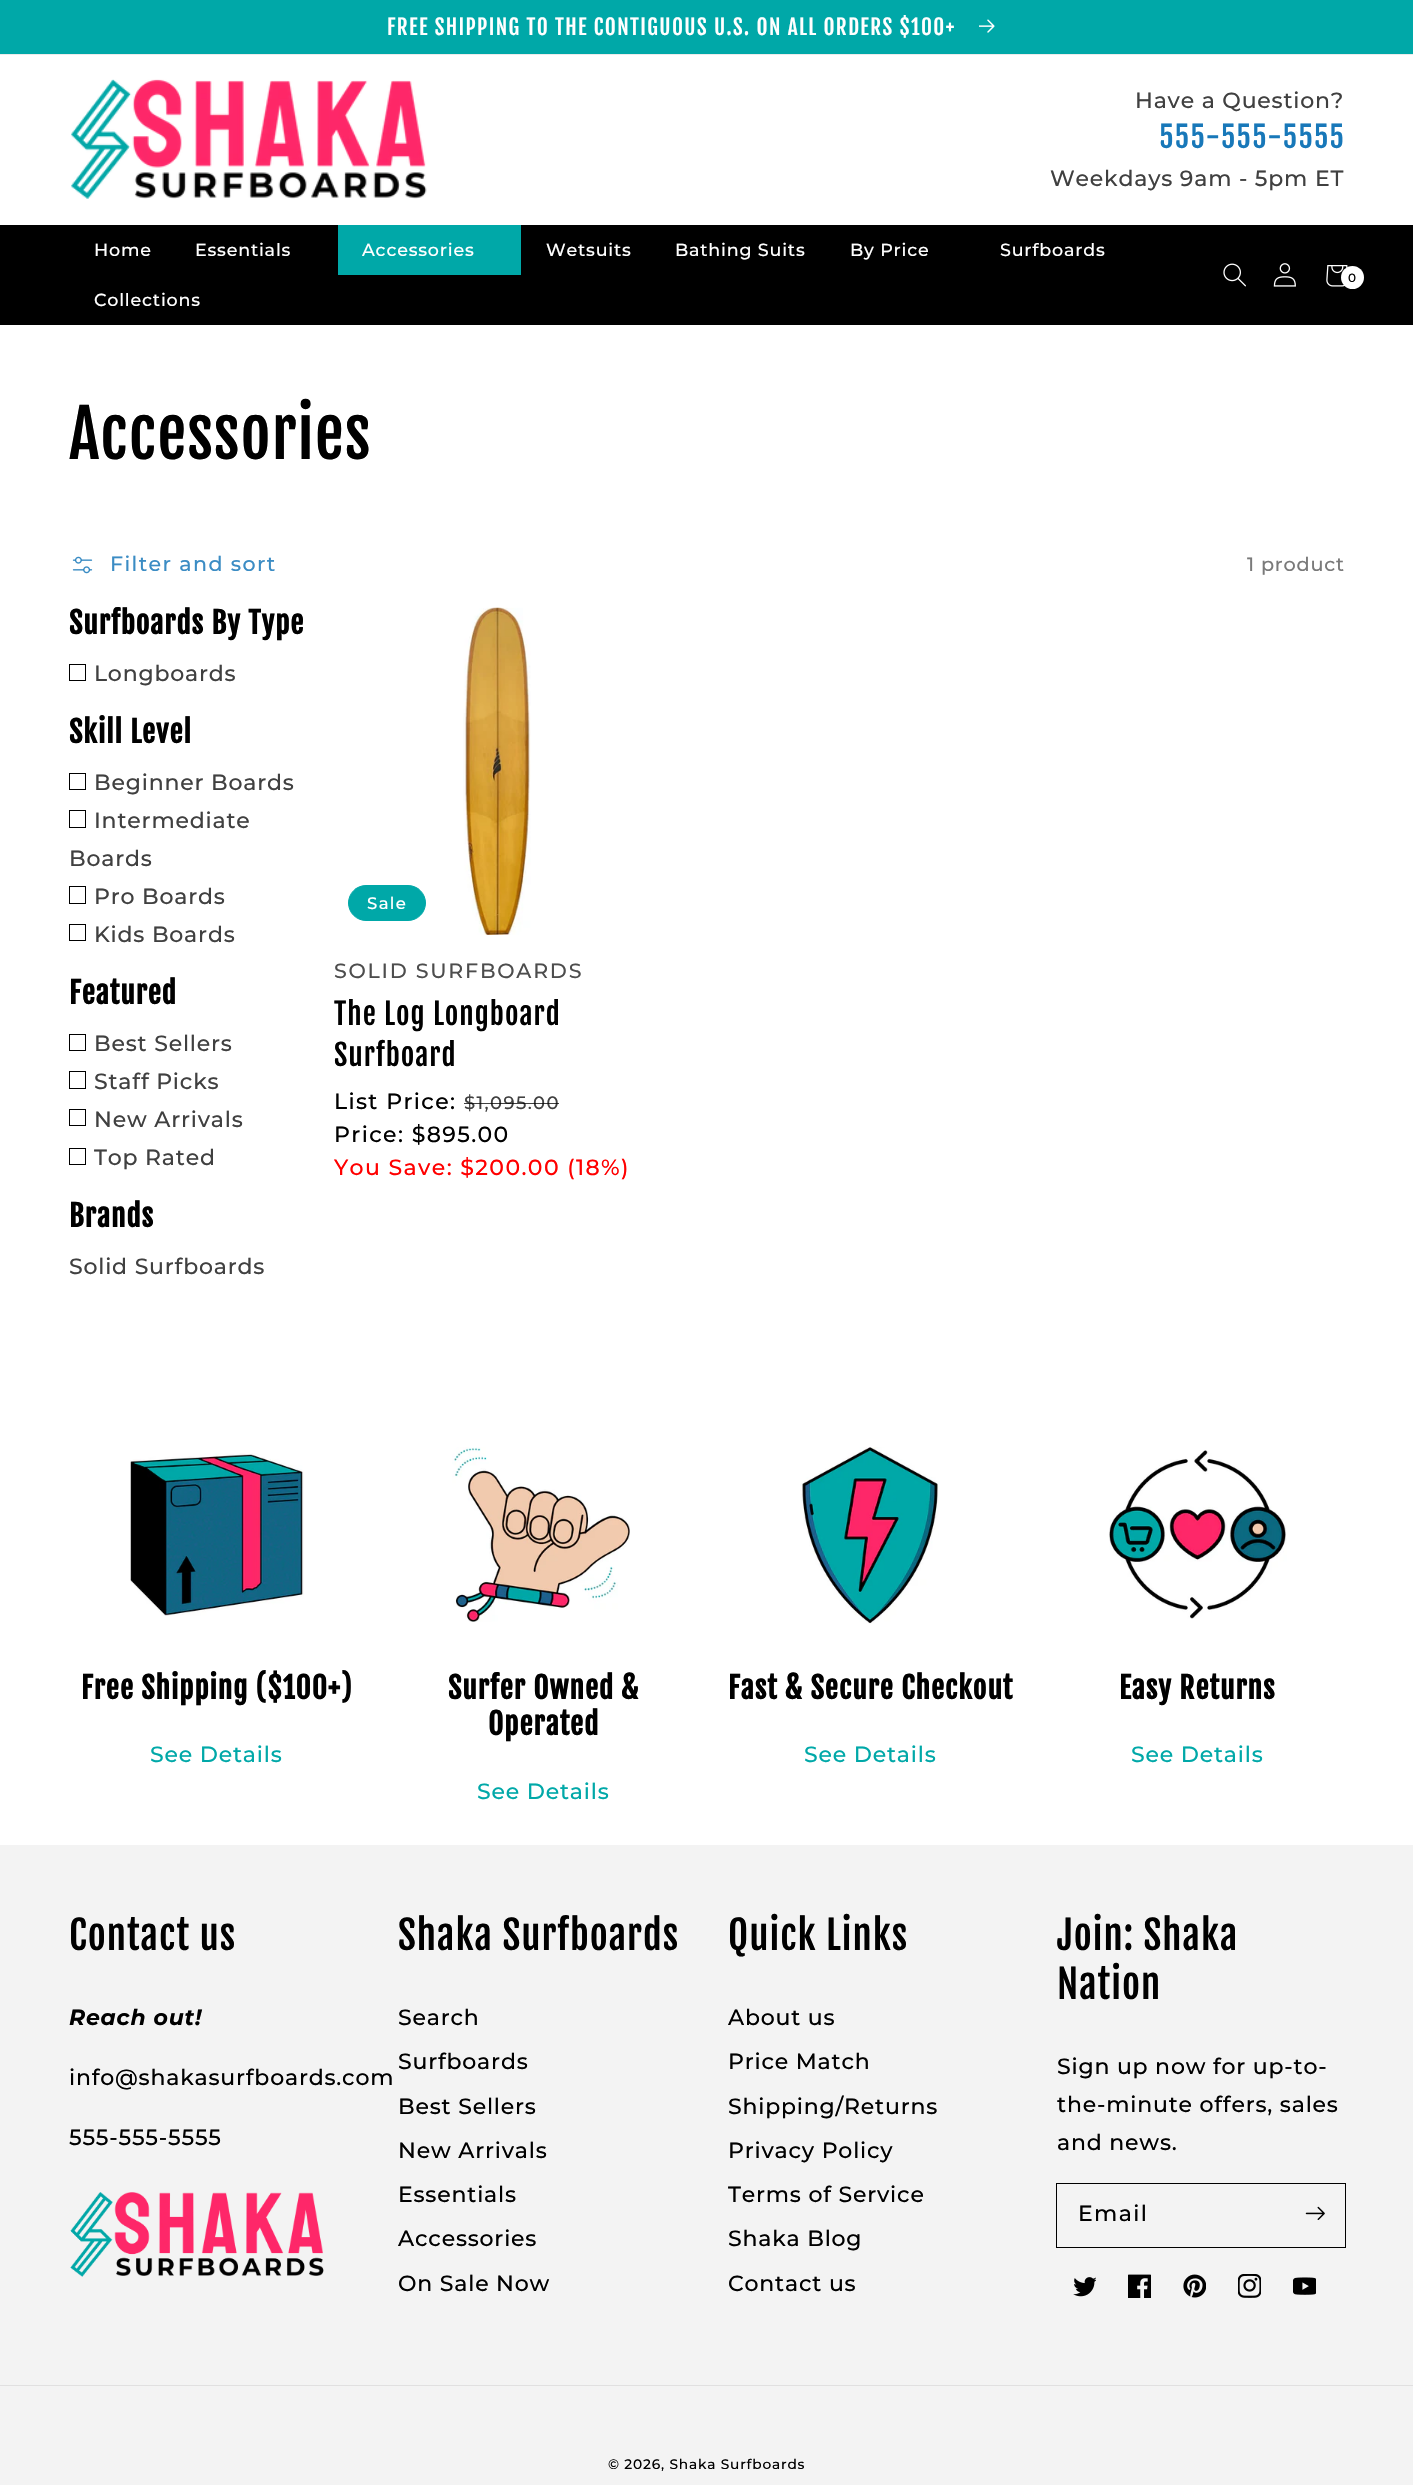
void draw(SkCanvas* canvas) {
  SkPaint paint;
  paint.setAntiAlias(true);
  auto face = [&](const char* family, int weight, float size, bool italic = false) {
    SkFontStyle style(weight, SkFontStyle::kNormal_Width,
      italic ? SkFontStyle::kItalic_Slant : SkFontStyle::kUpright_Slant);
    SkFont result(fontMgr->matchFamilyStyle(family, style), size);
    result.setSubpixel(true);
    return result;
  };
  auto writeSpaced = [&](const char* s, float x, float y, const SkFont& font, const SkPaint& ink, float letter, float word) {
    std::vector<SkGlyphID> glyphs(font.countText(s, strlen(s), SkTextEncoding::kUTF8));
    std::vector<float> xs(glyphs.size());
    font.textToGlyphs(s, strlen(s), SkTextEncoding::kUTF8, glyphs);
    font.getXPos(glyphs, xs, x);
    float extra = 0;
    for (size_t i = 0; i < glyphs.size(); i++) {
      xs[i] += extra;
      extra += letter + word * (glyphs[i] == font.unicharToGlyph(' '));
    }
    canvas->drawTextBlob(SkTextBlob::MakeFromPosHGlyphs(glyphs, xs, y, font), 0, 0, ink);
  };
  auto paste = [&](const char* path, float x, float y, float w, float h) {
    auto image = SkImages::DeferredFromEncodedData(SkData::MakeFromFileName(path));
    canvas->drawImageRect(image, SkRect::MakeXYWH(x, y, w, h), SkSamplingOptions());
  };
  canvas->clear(0xffffffff);
  paint.setColor(0xffebebeb);
  canvas->drawRect(SkRect::MakeXYWH(0, 54, 1413, 1), paint);
  paint.setColor(0xff00a8a8);
  canvas->drawRect(SkRect::MakeXYWH(0, 0, 1413, 54), paint);
  paste("img/1.png", 979, 19, 16, 14);
  paste("img/2.png", 71, 79, 356, 120);
  paint.setColor(0xff000000);
  canvas->drawRect(SkRect::MakeXYWH(0, 225, 1413, 100), paint);
  paint.setColor(0xff00a8a8);
  canvas->drawRect(SkRect::MakeXYWH(338, 225, 183, 50), paint);
  paste("img/3.png", 1223, 263, 23, 24);
  paste("img/4.png", 1273, 263, 23, 24);
  paste("img/5.png", 1326, 265, 22, 22);
  paint.setColor(0xffffffff);
  canvas->drawCircle(1352.5f, 277.5f, 11.5f, paint);
  paste("img/6.png", 72, 556, 21, 18);
  paint.setStroke(true);
  paint.setStrokeWidth(1);
  paint.setColor(0xff000000);
  canvas->drawRect(SkRect::MakeXYWH(69.5f, 664.5f, 16, 16), paint);
  canvas->drawRect(SkRect::MakeXYWH(69.5f, 773.5f, 16, 16), paint);
  canvas->drawRect(SkRect::MakeXYWH(69.5f, 810.5f, 16, 17), paint);
  canvas->drawRect(SkRect::MakeXYWH(69.5f, 886.5f, 16, 17), paint);
  canvas->drawRect(SkRect::MakeXYWH(69.5f, 924.5f, 16, 16), paint);
  canvas->drawRect(SkRect::MakeXYWH(69.5f, 1034.5f, 16, 16), paint);
  canvas->drawRect(SkRect::MakeXYWH(69.5f, 1071.5f, 16, 17), paint);
  canvas->drawRect(SkRect::MakeXYWH(69.5f, 1109.5f, 16, 16), paint);
  canvas->drawRect(SkRect::MakeXYWH(69.5f, 1148.5f, 16, 16), paint);
  paint.setStroke(false);
  paint.setColor(0xff00a8a8);
  canvas->drawRoundRect(SkRect::MakeXYWH(348.5f, 885.5f, 77, 35), 17.5f, 17.5f, paint);
  paint.setStroke(true);
  canvas->drawRoundRect(SkRect::MakeXYWH(348.5f, 885.5f, 77, 35), 17.5f, 17.5f, paint);
  paste("img/7.png", 463, 607, 68, 328);
  paste("img/8.png", 130, 1453, 174, 163);
  paste("img/9.png", 452, 1447, 178, 175);
  paste("img/10.png", 800, 1447, 139, 177);
  paste("img/11.png", 1109, 1450, 178, 169);
  paint.setStroke(false);
  paint.setColor(0xfff3f3f3);
  canvas->drawRect(SkRect::MakeXYWH(0, 1845, 1413, 640), paint);
  paste("img/12.png", 70, 2192, 254, 85);
  paint.setStroke(true);
  paint.setColor(0xff000000);
  canvas->drawRect(SkRect::MakeXYWH(1056.5f, 2183.5f, 289, 64), paint);
  paste("img/13.png", 1305, 2206, 20, 14);
  paste("img/14.png", 1073, 2277, 23, 20);
  paste("img/15.png", 1128, 2274, 23, 24);
  paste("img/16.png", 1183, 2274, 23, 24);
  paste("img/17.png", 1238, 2274, 23, 24);
  paste("img/18.png", 1293, 2277, 23, 18);
  paint.setStroke(false);
  paint.setColor(0xffe0e0e0);
  canvas->drawRect(SkRect::MakeXYWH(0, 2385, 1413, 1), paint);
  auto f0 = face("Fjalla One", 400, 21.1f);
  paint.setColor(0xffffffff);
  writeSpaced("FREE SHIPPING TO THE CONTIGUOUS U.S. ON ALL ORDERS $100+", 387, 35, f0, paint, 1.38f, 0);
  auto f1 = face("Montserrat", 500, 22);
  paint.setColor(0xff404040);
  writeSpaced("Have a Question?", 1135, 108, f1, paint, 0.8f, 0);
  auto f2 = face("Fjalla One", 400, 29.25f);
  paint.setColor(0xff1878b9);
  writeSpaced("555-555-5555", 1159, 148, f2, paint, 1, 0);
  paint.setColor(0xff404040);
  writeSpaced("Weekdays 9am - 5pm ET", 1050, 186, f1, paint, 0.8f, 0);
  auto f3 = face("Montserrat", 500, 17.5f);
  paint.setColor(0xffffffff);
  {
    const struct { const char* s; float x, y; } items[] = {
      {"Home", 94, 256},
      {"Essentials", 195, 256},
      {"Accessories", 362, 256},
      {"Wetsuits", 546, 256},
      {"Bathing Suits", 675, 256},
      {"By Price", 850, 256},
      {"Surfboards", 1000, 256},
      {"Collections", 94, 306},
    };
    for (auto [s, x, y] : items) {
      writeSpaced(s, x, y, f3, paint, 0.8f, 0);
    }
  }
  auto f4 = face("Montserrat", 500, 12);
  paint.setColor(0xff000000);
  writeSpaced("0", 1348, 282, f4, paint, 0.8f, 0);
  auto f5 = face("Fjalla One", 400, 65);
  writeSpaced("Accessories", 69, 459, f5, paint, 1, 0);
  auto f6 = face("Montserrat", 500, 20.6f);
  paint.setColor(0xff3b8cc4);
  writeSpaced("Filter and sort", 110, 571, f6, paint, 1.38f, 0);
  auto f7 = face("Montserrat", 500, 19.25f);
  paint.setColor(0xff7a7a7a);
  writeSpaced("1 product", 1247, 571, f7, paint, 0.8f, 0);
  auto f8 = face("Fjalla One", 700, 29.25f);
  paint.setColor(0xff000000);
  writeSpaced("Surfboards By Type", 69, 634, f8, paint, 1, 0);
  paint.setColor(0xff404040);
  writeSpaced("Longboards", 94, 681, f1, paint, 0.8f, 0);
  paint.setColor(0xff000000);
  writeSpaced("Skill Level", 69, 743, f8, paint, 1, 0);
  paint.setColor(0xff404040);
  {
    const struct { const char* s; float x, y; } items[] = {
      {"Beginner Boards", 94, 790},
      {"Intermediate", 94, 828},
      {"Boards", 69, 866},
      {"Pro Boards", 94, 904},
      {"Kids Boards", 94, 942},
    };
    for (auto [s, x, y] : items) {
      writeSpaced(s, x, y, f1, paint, 0.8f, 0);
    }
  }
  paint.setColor(0xff000000);
  writeSpaced("Featured", 69, 1004, f8, paint, 1, 0);
  paint.setColor(0xff404040);
  {
    const struct { const char* s; float x, y; } items[] = {
      {"Best Sellers", 94, 1051},
      {"Staff Picks", 94, 1089},
      {"New Arrivals", 94, 1127},
      {"Top Rated", 94, 1165},
    };
    for (auto [s, x, y] : items) {
      writeSpaced(s, x, y, f1, paint, 0.8f, 0);
    }
  }
  paint.setColor(0xff000000);
  writeSpaced("Brands", 69, 1227, f8, paint, 1, 0);
  paint.setColor(0xff404040);
  writeSpaced("Solid Surfboards", 69, 1274, f1, paint, 0.8f, 0);
  auto f9 = face("Montserrat", 500, 16.5f);
  paint.setColor(0xffffffff);
  writeSpaced("Sale", 367, 909, f9, paint, 1.38f, 0);
  paint.setColor(0xff4d4d4d);
  writeSpaced("SOLID SURFBOARDS", 334, 978, f6, paint, 1.75f, 0);
  paint.setColor(0xff000000);
  writeSpaced("The Log Longboard", 334, 1025, f2, paint, 1, 0);
  writeSpaced("Surfboard", 334, 1066, f2, paint, 1, 0);
  writeSpaced("List Price:", 334, 1109, f1, paint, 1.38f, 0);
  auto f10 = face("Montserrat", 500, 18);
  paint.setColor(0xff404040);
  writeSpaced("$1,095.00", 464, 1109, f10, paint, 1.38f, 0);
  paint.setColor(0xbf000000);
  canvas->drawRect(SkRect::MakeXYWH(464, 1103, 95, 1), paint);
  paint.setColor(0xff000000);
  writeSpaced("Price: $895.00", 334, 1142, f1, paint, 1.38f, 0);
  paint.setColor(0xffff0000);
  writeSpaced("You Save: $200.00 (18%)", 334, 1175, f1, paint, 1.38f, 0);
  paint.setColor(0xff000000);
  writeSpaced("Free Shipping ($100+)", 81, 1699, f8, paint, 1, 0);
  paint.setColor(0xff00a8a8);
  writeSpaced("See Details", 150, 1762, f1, paint, 0.8f, 0);
  paint.setColor(0xff000000);
  writeSpaced("Surfer Owned &", 448, 1699, f8, paint, 1, 0);
  writeSpaced("Operated", 488, 1735, f8, paint, 1, 0);
  paint.setColor(0xff00a8a8);
  writeSpaced("See Details", 477, 1799, f1, paint, 0.8f, 0);
  paint.setColor(0xff000000);
  writeSpaced("Fast & Secure Checkout", 728, 1699, f8, paint, 1, 0);
  paint.setColor(0xff00a8a8);
  writeSpaced("See Details", 804, 1762, f1, paint, 0.8f, 0);
  paint.setColor(0xff000000);
  writeSpaced("Easy Returns", 1119, 1699, f8, paint, 1, 0);
  paint.setColor(0xff00a8a8);
  writeSpaced("See Details", 1131, 1762, f1, paint, 0.8f, 0);
  auto f11 = face("Fjalla One", 400, 39);
  paint.setColor(0xff000000);
  writeSpaced("Contact us", 69, 1950, f11, paint, 1, 0);
  auto f12 = face("Montserrat", 700, 22, true);
  writeSpaced("Reach out!", 69, 2025, f12, paint, 0.8f, 0);
  writeSpaced("info@shakasurfboards.com", 69, 2085, f1, paint, 0.8f, 0);
  writeSpaced("555-555-5555", 69, 2145, f1, paint, 0.8f, 0);
  writeSpaced("Shaka Surfboards", 398, 1950, f11, paint, 1, 0);
  {
    const struct { const char* s; float x, y; } items[] = {
      {"Search", 398, 2025},
      {"Surfboards", 398, 2069},
      {"Best Sellers", 398, 2114},
      {"New Arrivals", 398, 2158},
      {"Essentials", 398, 2202},
      {"Accessories", 398, 2246},
      {"On Sale Now", 398, 2291},
    };
    for (auto [s, x, y] : items) {
      writeSpaced(s, x, y, f1, paint, 0.8f, 0);
    }
  }
  writeSpaced("Quick Links", 728, 1950, f11, paint, 1, 0);
  {
    const struct { const char* s; float x, y; } items[] = {
      {"About us", 728, 2025},
      {"Price Match", 728, 2069},
      {"Shipping/Returns", 728, 2114},
      {"Privacy Policy", 728, 2158},
      {"Terms of Service", 728, 2202},
      {"Shaka Blog", 728, 2246},
      {"Contact us", 728, 2291},
    };
    for (auto [s, x, y] : items) {
      writeSpaced(s, x, y, f1, paint, 0.8f, 0);
    }
  }
  writeSpaced("Join: Shaka", 1057, 1950, f11, paint, 1, 0);
  writeSpaced("Nation", 1057, 1999, f11, paint, 1, 0);
  {
    const struct { const char* s; float x, y; } items[] = {
      {"Sign up now for up-to-", 1057, 2074},
      {"the-minute offers, sales", 1057, 2112},
      {"and news.", 1057, 2150},
    };
    for (auto [s, x, y] : items) {
      writeSpaced(s, x, y, f1, paint, 0.8f, 0);
    }
  }
  writeSpaced("Email", 1078, 2221, f1, paint, 1.38f, 0);
  auto f13 = face("Montserrat", 500, 13.75f);
  writeSpaced("© 2026, Shaka Surfboards", 608, 2469, f13, paint, 0.8f, 0);
}
